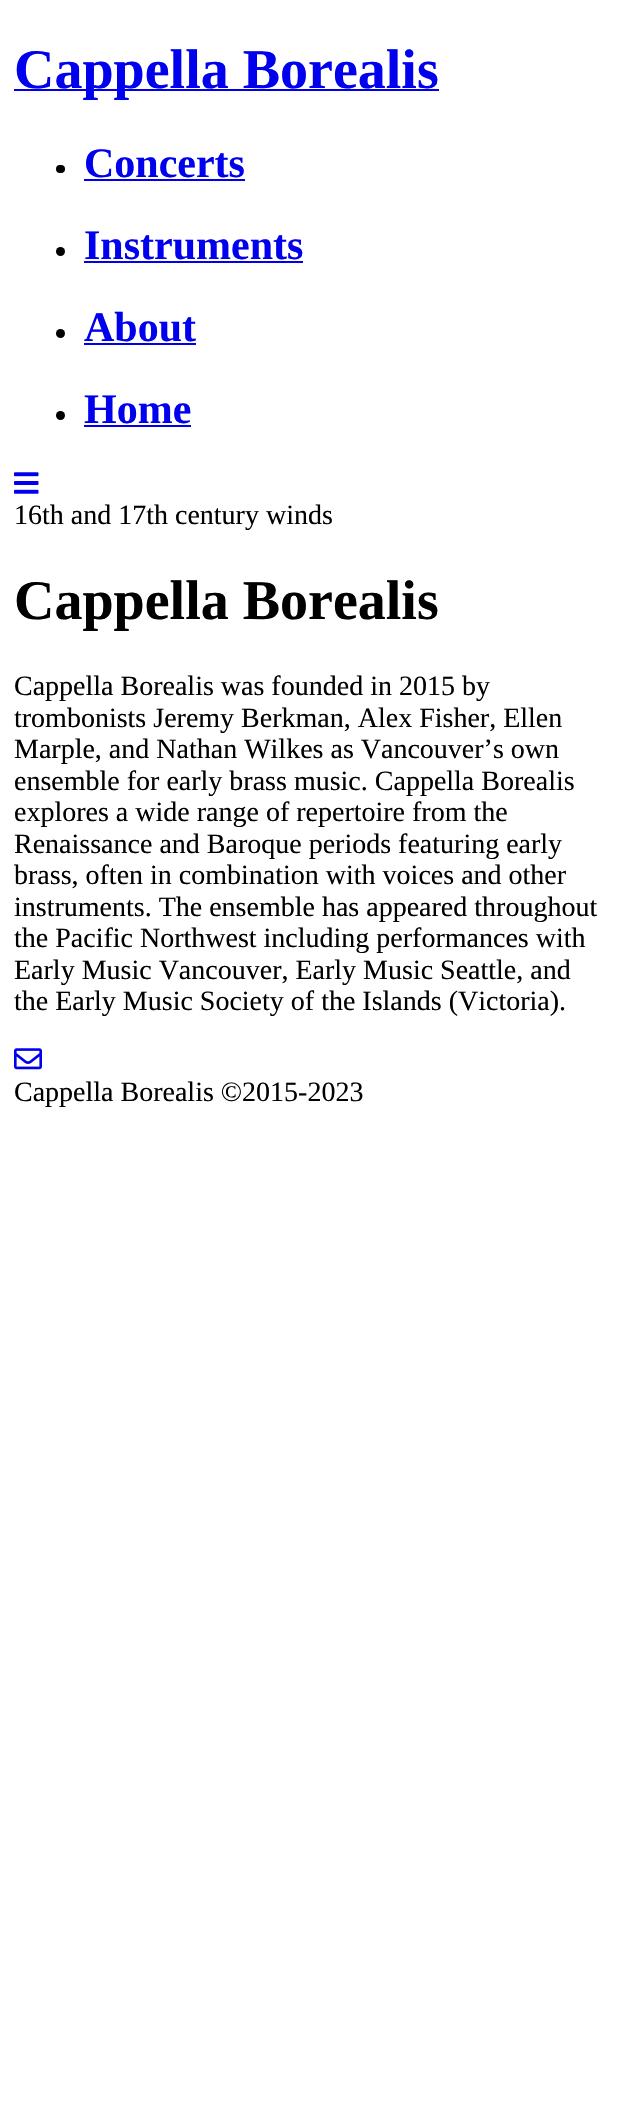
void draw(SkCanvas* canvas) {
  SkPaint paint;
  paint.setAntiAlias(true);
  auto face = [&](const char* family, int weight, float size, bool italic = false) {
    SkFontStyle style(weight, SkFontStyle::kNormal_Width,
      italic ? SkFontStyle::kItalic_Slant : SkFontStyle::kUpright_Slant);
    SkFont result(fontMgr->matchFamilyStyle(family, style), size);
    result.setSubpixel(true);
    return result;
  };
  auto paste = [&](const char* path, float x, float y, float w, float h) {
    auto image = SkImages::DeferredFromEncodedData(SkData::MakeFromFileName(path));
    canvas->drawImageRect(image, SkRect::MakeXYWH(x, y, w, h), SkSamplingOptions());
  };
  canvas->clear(0xffffffff);
  paint.setColor(0xff0000ee);
  canvas->drawRect(SkRect::MakeXYWH(14, 89, 425, 2), paint);
  paint.setColor(0xff000000);
  canvas->drawRoundRect(SkRect::MakeXYWH(56, 165, 9, 8), 4, 4, paint);
  paint.setColor(0xff0000ee);
  canvas->drawRect(SkRect::MakeXYWH(84, 179, 161, 2), paint);
  paint.setColor(0xff000000);
  canvas->drawCircle(60.5f, 251.5f, 4.5f, paint);
  paint.setColor(0xff0000ee);
  canvas->drawRect(SkRect::MakeXYWH(84, 261, 219, 2), paint);
  paint.setColor(0xff000000);
  canvas->drawCircle(60.5f, 333.5f, 4.5f, paint);
  paint.setColor(0xff0000ee);
  canvas->drawRect(SkRect::MakeXYWH(84, 343, 112, 2), paint);
  paint.setColor(0xff000000);
  canvas->drawCircle(60.5f, 415.5f, 4.5f, paint);
  paint.setColor(0xff0000ee);
  canvas->drawRect(SkRect::MakeXYWH(84, 425, 107, 2), paint);
  paste("img/1.png", 14, 472, 25, 22);
  paste("img/2.png", 14, 1048, 28, 22);
  auto f0 = face("Liberation Serif", 700, 56);
  canvas->drawString("Cappella Borealis", 14, 88, f0, paint);
  auto f1 = face("Liberation Serif", 700, 42);
  {
    const struct { const char* s; float x, y; } items[] = {
      {"Concerts", 84, 177},
      {"Instruments", 84, 259},
      {"About", 84, 341},
      {"Home", 84, 423},
    };
    for (auto [s, x, y] : items) {
      canvas->drawString(s, x, y, f1, paint);
    }
  }
  auto f2 = face("Liberation Serif", 400, 28);
  paint.setColor(0xff000000);
  canvas->drawString("16th and 17th century winds", 14, 524, f2, paint);
  canvas->drawString("Cappella Borealis", 14, 619, f0, paint);
  {
    const struct { const char* s; float x, y; } items[] = {
      {"Cappella Borealis was founded in 2015 by", 14, 695},
      {"trombonists Jeremy Berkman, Alex Fisher, Ellen", 14, 727},
      {"Marple, and Nathan Wilkes as Vancouver’s own", 14, 758},
      {"ensemble for early brass music. Cappella Borealis", 14, 790},
      {"explores a wide range of repertoire from the", 14, 821},
      {"Renaissance and Baroque periods featuring early", 14, 853},
      {"brass, often in combination with voices and other", 14, 884},
      {"instruments. The ensemble has appeared throughout", 14, 916},
      {"the Pacific Northwest including performances with", 14, 947},
      {"Early Music Vancouver, Early Music Seattle, and", 14, 979},
      {"the Early Music Society of the Islands (Victoria).", 14, 1010},
      {"Cappella Borealis ©2015-2023", 14, 1101},
    };
    for (auto [s, x, y] : items) {
      canvas->drawString(s, x, y, f2, paint);
    }
  }
}
